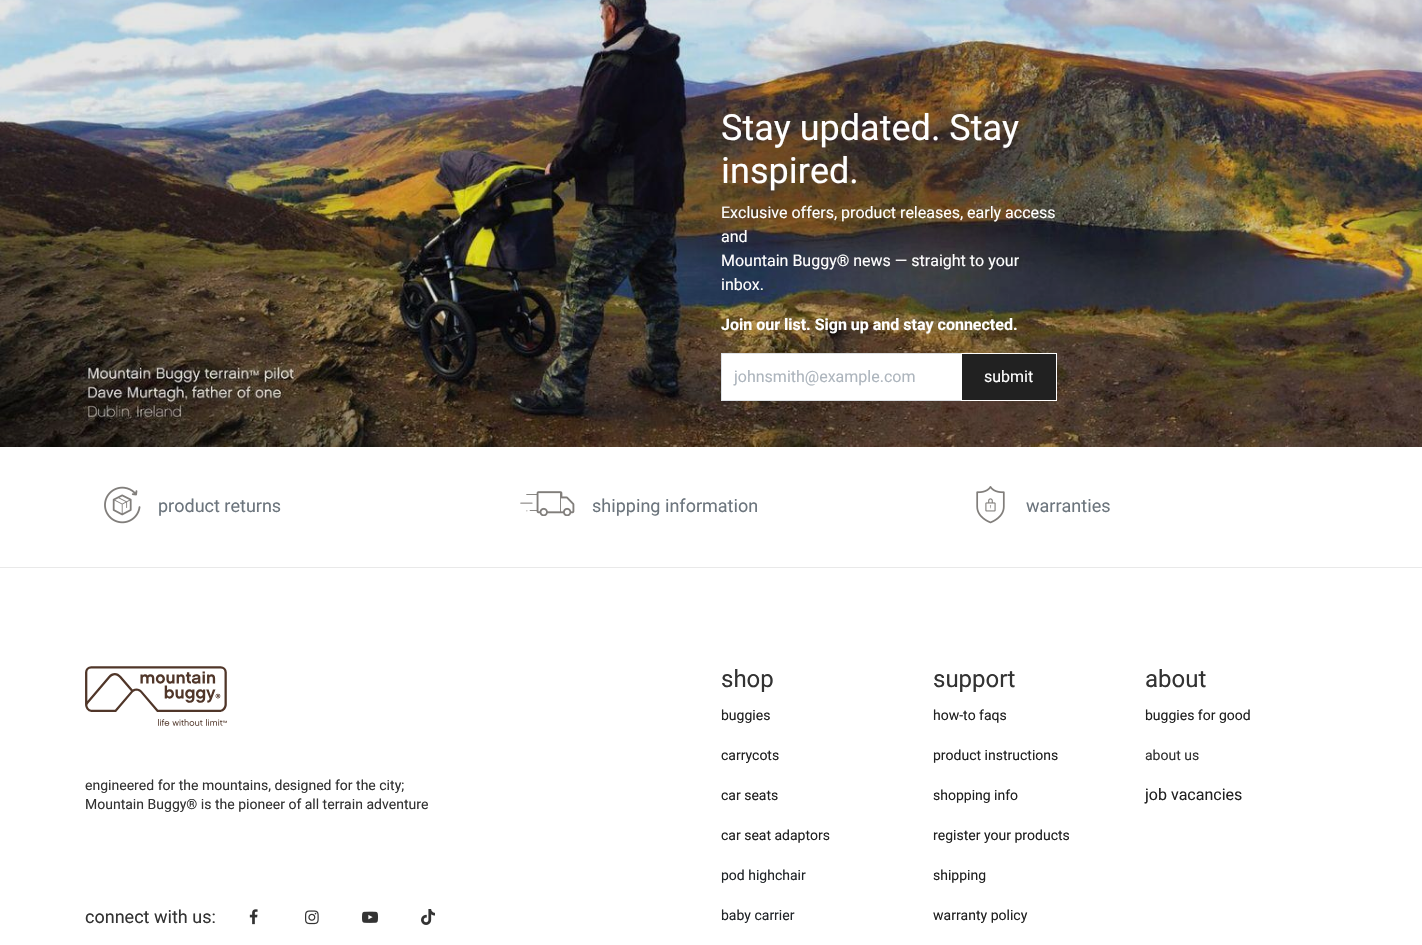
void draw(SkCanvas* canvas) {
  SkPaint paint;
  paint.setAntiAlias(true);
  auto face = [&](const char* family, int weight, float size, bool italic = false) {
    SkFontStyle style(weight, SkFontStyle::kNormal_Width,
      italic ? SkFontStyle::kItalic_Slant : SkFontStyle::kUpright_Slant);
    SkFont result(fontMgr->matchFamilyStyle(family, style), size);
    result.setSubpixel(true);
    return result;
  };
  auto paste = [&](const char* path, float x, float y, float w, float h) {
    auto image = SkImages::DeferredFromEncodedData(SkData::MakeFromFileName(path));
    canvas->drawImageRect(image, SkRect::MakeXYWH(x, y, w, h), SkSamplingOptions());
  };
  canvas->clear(0xffffffff);
  paste("img/1.png", 0, 0, 1422, 447);
  paint.setColor(0xffffffff);
  canvas->drawRect(SkRect::MakeXYWH(722, 354, 239, 46), paint);
  paint.setStroke(true);
  paint.setStrokeWidth(1);
  paint.setColor(0xffdee2e6);
  canvas->drawRect(SkRect::MakeXYWH(721.5f, 353.5f, 242, 47), paint);
  paint.setStroke(false);
  paint.setColor(0xff212121);
  canvas->drawRect(SkRect::MakeXYWH(961.5f, 353.5f, 95, 47), paint);
  paint.setStroke(true);
  paint.setColor(0xffffffff);
  canvas->drawRect(SkRect::MakeXYWH(961.5f, 353.5f, 95, 47), paint);
  paste("img/2.png", 104, 486, 37, 38);
  paste("img/3.png", 520, 491, 55, 25);
  paste("img/4.png", 976, 486, 29, 38);
  paint.setStroke(false);
  paint.setColor(0xffe9e9e9);
  canvas->drawRect(SkRect::MakeXYWH(0, 567, 1422, 1), paint);
  paste("img/5.png", 85, 666, 142, 60);
  paste("img/6.png", 249, 909, 9, 16);
  paste("img/7.png", 305, 910, 14, 15);
  paste("img/8.png", 362, 911, 16, 12);
  paste("img/9.png", 421, 909, 14, 16);
  auto f0 = face("Heebo", 400, 36);
  paint.setColor(0xffffffff);
  canvas->drawString("Stay updated. Stay", 721, 140, f0, paint);
  canvas->drawString("inspired.", 721, 183, f0, paint);
  auto f1 = face("Roboto", 400, 16);
  {
    const struct { const char* s; float x, y; } items[] = {
      {"Exclusive offers, product releases, early access", 721, 218},
      {"and", 721, 242},
      {"Mountain Buggy® news — straight to your", 721, 266},
      {"inbox.", 721, 290},
    };
    for (auto [s, x, y] : items) {
      canvas->drawString(s, x, y, f1, paint);
    }
  }
  auto f2 = face("Roboto", 700, 16);
  canvas->drawString("Join our list. Sign up and stay connected.", 721, 330, f2, paint);
  paint.setColor(0xffadb5bd);
  canvas->drawString("johnsmith@example.com", 734, 382, f1, paint);
  auto f3 = face("Heebo", 400, 16);
  paint.setColor(0xffffffff);
  canvas->drawString("submit", 984, 382, f3, paint);
  auto f4 = face("Heebo", 400, 18);
  paint.setColor(0xff6c757d);
  {
    const struct { const char* s; float x, y; } items[] = {
      {"product returns", 158, 512},
      {"shipping information", 592, 512},
      {"warranties", 1026, 512},
    };
    for (auto [s, x, y] : items) {
      canvas->drawString(s, x, y, f4, paint);
    }
  }
  auto f5 = face("Heebo", 400, 24);
  paint.setColor(0xff333333);
  canvas->drawString("shop", 721, 687, f5, paint);
  auto f6 = face("Roboto", 400, 14);
  paint.setColor(0xff212121);
  {
    const struct { const char* s; float x, y; } items[] = {
      {"buggies", 721, 720},
      {"carrycots", 721, 760},
      {"car seats", 721, 800},
      {"car seat adaptors", 721, 840},
    };
    for (auto [s, x, y] : items) {
      canvas->drawString(s, x, y, f6, paint);
    }
  }
  paint.setColor(0xff212529);
  canvas->drawString("pod highchair", 721, 880, f6, paint);
  canvas->drawString("baby carrier", 721, 920, f6, paint);
  paint.setColor(0xff333333);
  canvas->drawString("support", 933, 687, f5, paint);
  paint.setColor(0xff212121);
  {
    const struct { const char* s; float x, y; } items[] = {
      {"how-to faqs", 933, 720},
      {"product instructions", 933, 760},
      {"shopping info", 933, 800},
      {"register your products", 933, 840},
      {"shipping", 933, 880},
      {"warranty policy", 933, 920},
    };
    for (auto [s, x, y] : items) {
      canvas->drawString(s, x, y, f6, paint);
    }
  }
  paint.setColor(0xff333333);
  canvas->drawString("about", 1145, 687, f5, paint);
  paint.setColor(0xff212121);
  canvas->drawString("buggies for good", 1145, 720, f6, paint);
  paint.setColor(0xff333333);
  canvas->drawString("about us", 1145, 760, f6, paint);
  paint.setColor(0xff212121);
  canvas->drawString("job vacancies", 1145, 800, f1, paint);
  auto f7 = face("Heebo", 400, 14);
  paint.setColor(0xff333333);
  canvas->drawString("engineered for the mountains, designed for the city;", 85, 790, f7, paint);
  canvas->drawString("Mountain Buggy® is the pioneer of all terrain adventure", 85, 809, f7, paint);
  canvas->drawString("connect with us:", 85, 923, f4, paint);
}
